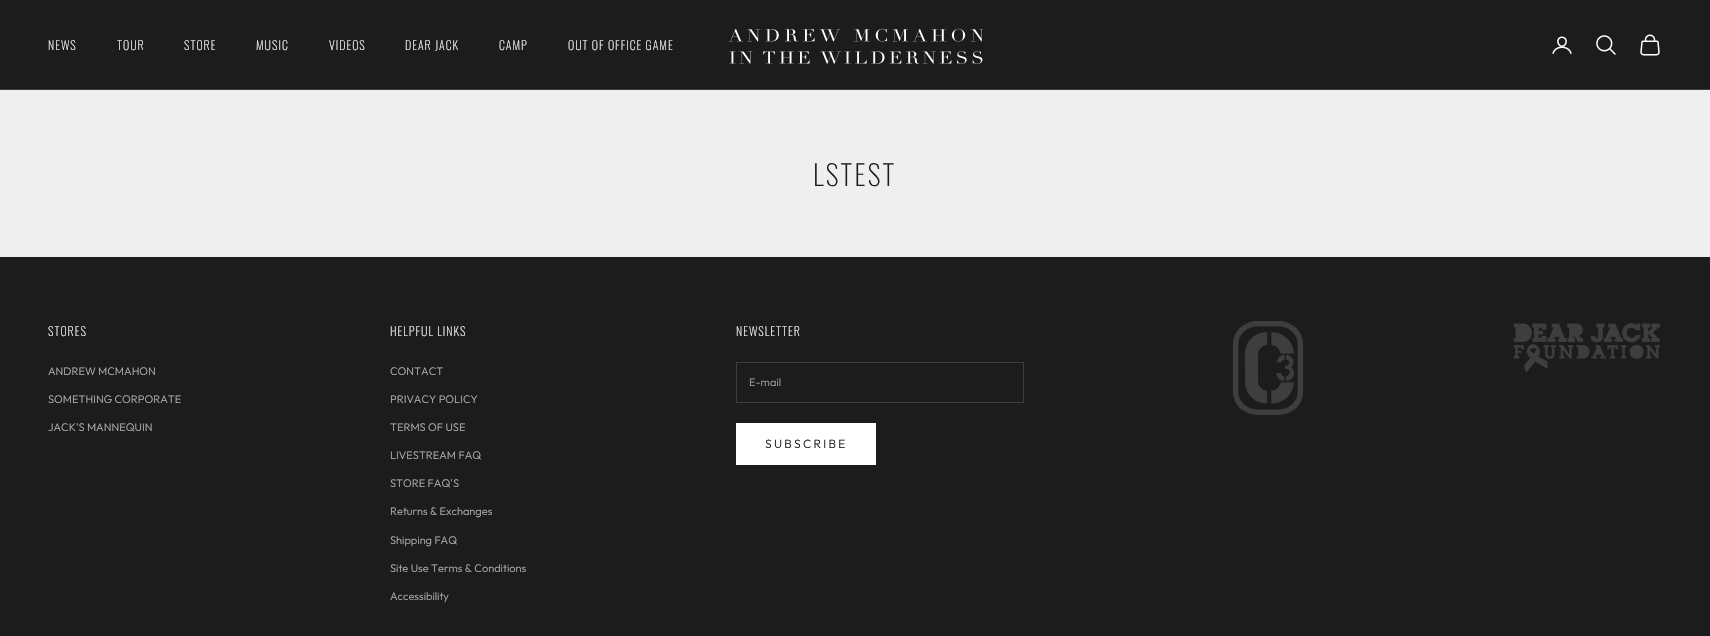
void draw(SkCanvas* canvas) {
  SkPaint paint;
  paint.setAntiAlias(true);
  auto face = [&](const char* family, int weight, float size, bool italic = false) {
    SkFontStyle style(weight, SkFontStyle::kNormal_Width,
      italic ? SkFontStyle::kItalic_Slant : SkFontStyle::kUpright_Slant);
    SkFont result(fontMgr->matchFamilyStyle(family, style), size);
    result.setSubpixel(true);
    return result;
  };
  auto writeSpaced = [&](const char* s, float x, float y, const SkFont& font, const SkPaint& ink, float letter, float word) {
    std::vector<SkGlyphID> glyphs(font.countText(s, strlen(s), SkTextEncoding::kUTF8));
    std::vector<float> xs(glyphs.size());
    font.textToGlyphs(s, strlen(s), SkTextEncoding::kUTF8, glyphs);
    font.getXPos(glyphs, xs, x);
    float extra = 0;
    for (size_t i = 0; i < glyphs.size(); i++) {
      xs[i] += extra;
      extra += letter + word * (glyphs[i] == font.unicharToGlyph(' '));
    }
    canvas->drawTextBlob(SkTextBlob::MakeFromPosHGlyphs(glyphs, xs, y, font), 0, 0, ink);
  };
  auto paste = [&](const char* path, float x, float y, float w, float h) {
    auto image = SkImages::DeferredFromEncodedData(SkData::MakeFromFileName(path));
    canvas->drawImageRect(image, SkRect::MakeXYWH(x, y, w, h), SkSamplingOptions());
  };
  canvas->clear(0xffefefef);
  paint.setColor(0xff1c1c1c);
  canvas->drawRect(SkRect::MakeXYWH(0, 0, 1710, 89), paint);
  paint.setColor(0xff3e3e3e);
  canvas->drawRect(SkRect::MakeXYWH(0, 89, 1710, 1), paint);
  paste("img/1.png", 728, 28, 255, 36);
  paste("img/2.png", 1552, 36, 20, 18);
  paste("img/3.png", 1596, 35, 20, 20);
  paste("img/4.png", 1640, 34, 20, 22);
  paint.setColor(0xff1c1c1c);
  canvas->drawRect(SkRect::MakeXYWH(0, 257, 1710, 379), paint);
  paint.setStroke(true);
  paint.setStrokeWidth(1);
  paint.setColor(0xff3e3e3e);
  canvas->drawRect(SkRect::MakeXYWH(736.5f, 362.5f, 287, 40), paint);
  paint.setStroke(false);
  paint.setColor(0xffffffff);
  canvas->drawRect(SkRect::MakeXYWH(736.5f, 423.5f, 139, 41), paint);
  paint.setStroke(true);
  canvas->drawRect(SkRect::MakeXYWH(736.5f, 423.5f, 139, 41), paint);
  paste("img/5.png", 1233, 321, 70, 94);
  paste("img/6.png", 1513, 323, 148, 50);
  auto f0 = face("Oswald", 200, 12);
  paint.setStroke(false);
  {
    const struct { const char* s; float x, y; } items[] = {
      {"NEWS", 48, 50},
      {"TOUR", 117, 50},
      {"STORE", 184, 50},
      {"MUSIC", 256, 50},
      {"VIDEOS", 329, 50},
      {"DEAR JACK", 405, 50},
      {"CAMP", 499, 50},
      {"OUT OF OFFICE GAME", 568, 50},
    };
    for (auto [s, x, y] : items) {
      writeSpaced(s, x, y, f0, paint, 1, 0);
    }
  }
  auto f1 = face("Oswald", 200, 28);
  paint.setColor(0xff1c1c1c);
  writeSpaced("LSTEST", 813, 186, f1, paint, 2.25f, 0);
  paint.setColor(0xffffffff);
  writeSpaced("STORES", 48, 336, f0, paint, 1, 0);
  auto f2 = face("Outfit", 300, 11);
  paint.setColor(0xffb0b0b0);
  {
    const struct { const char* s; float x, y; } items[] = {
      {"ANDREW MCMAHON", 48, 375},
      {"SOMETHING CORPORATE", 48, 403},
      {"JACK'S MANNEQUIN", 48, 431},
    };
    for (auto [s, x, y] : items) {
      canvas->drawString(s, x, y, f2, paint);
    }
  }
  paint.setColor(0xffffffff);
  writeSpaced("HELPFUL LINKS", 390, 336, f0, paint, 1, 0);
  paint.setColor(0xffb0b0b0);
  {
    const struct { const char* s; float x, y; } items[] = {
      {"CONTACT", 390, 375},
      {"PRIVACY POLICY", 390, 403},
      {"TERMS OF USE", 390, 431},
      {"LIVESTREAM FAQ", 390, 459},
      {"STORE FAQ'S", 390, 487},
      {"Returns & Exchanges", 390, 515},
      {"Shipping FAQ", 390, 544},
      {"Site Use Terms & Conditions", 390, 572},
      {"Accessibility", 390, 600},
    };
    for (auto [s, x, y] : items) {
      canvas->drawString(s, x, y, f2, paint);
    }
  }
  paint.setColor(0xffffffff);
  writeSpaced("NEWSLETTER", 736, 336, f0, paint, 1, 0);
  paint.setColor(0xffa4a4a4);
  canvas->drawString("E-mail", 749, 386, f2, paint);
  auto f3 = face("Outfit", 300, 12);
  paint.setColor(0xff1c1c1c);
  writeSpaced("SUBSCRIBE", 765, 448, f3, paint, 2.25f, 0);
}
